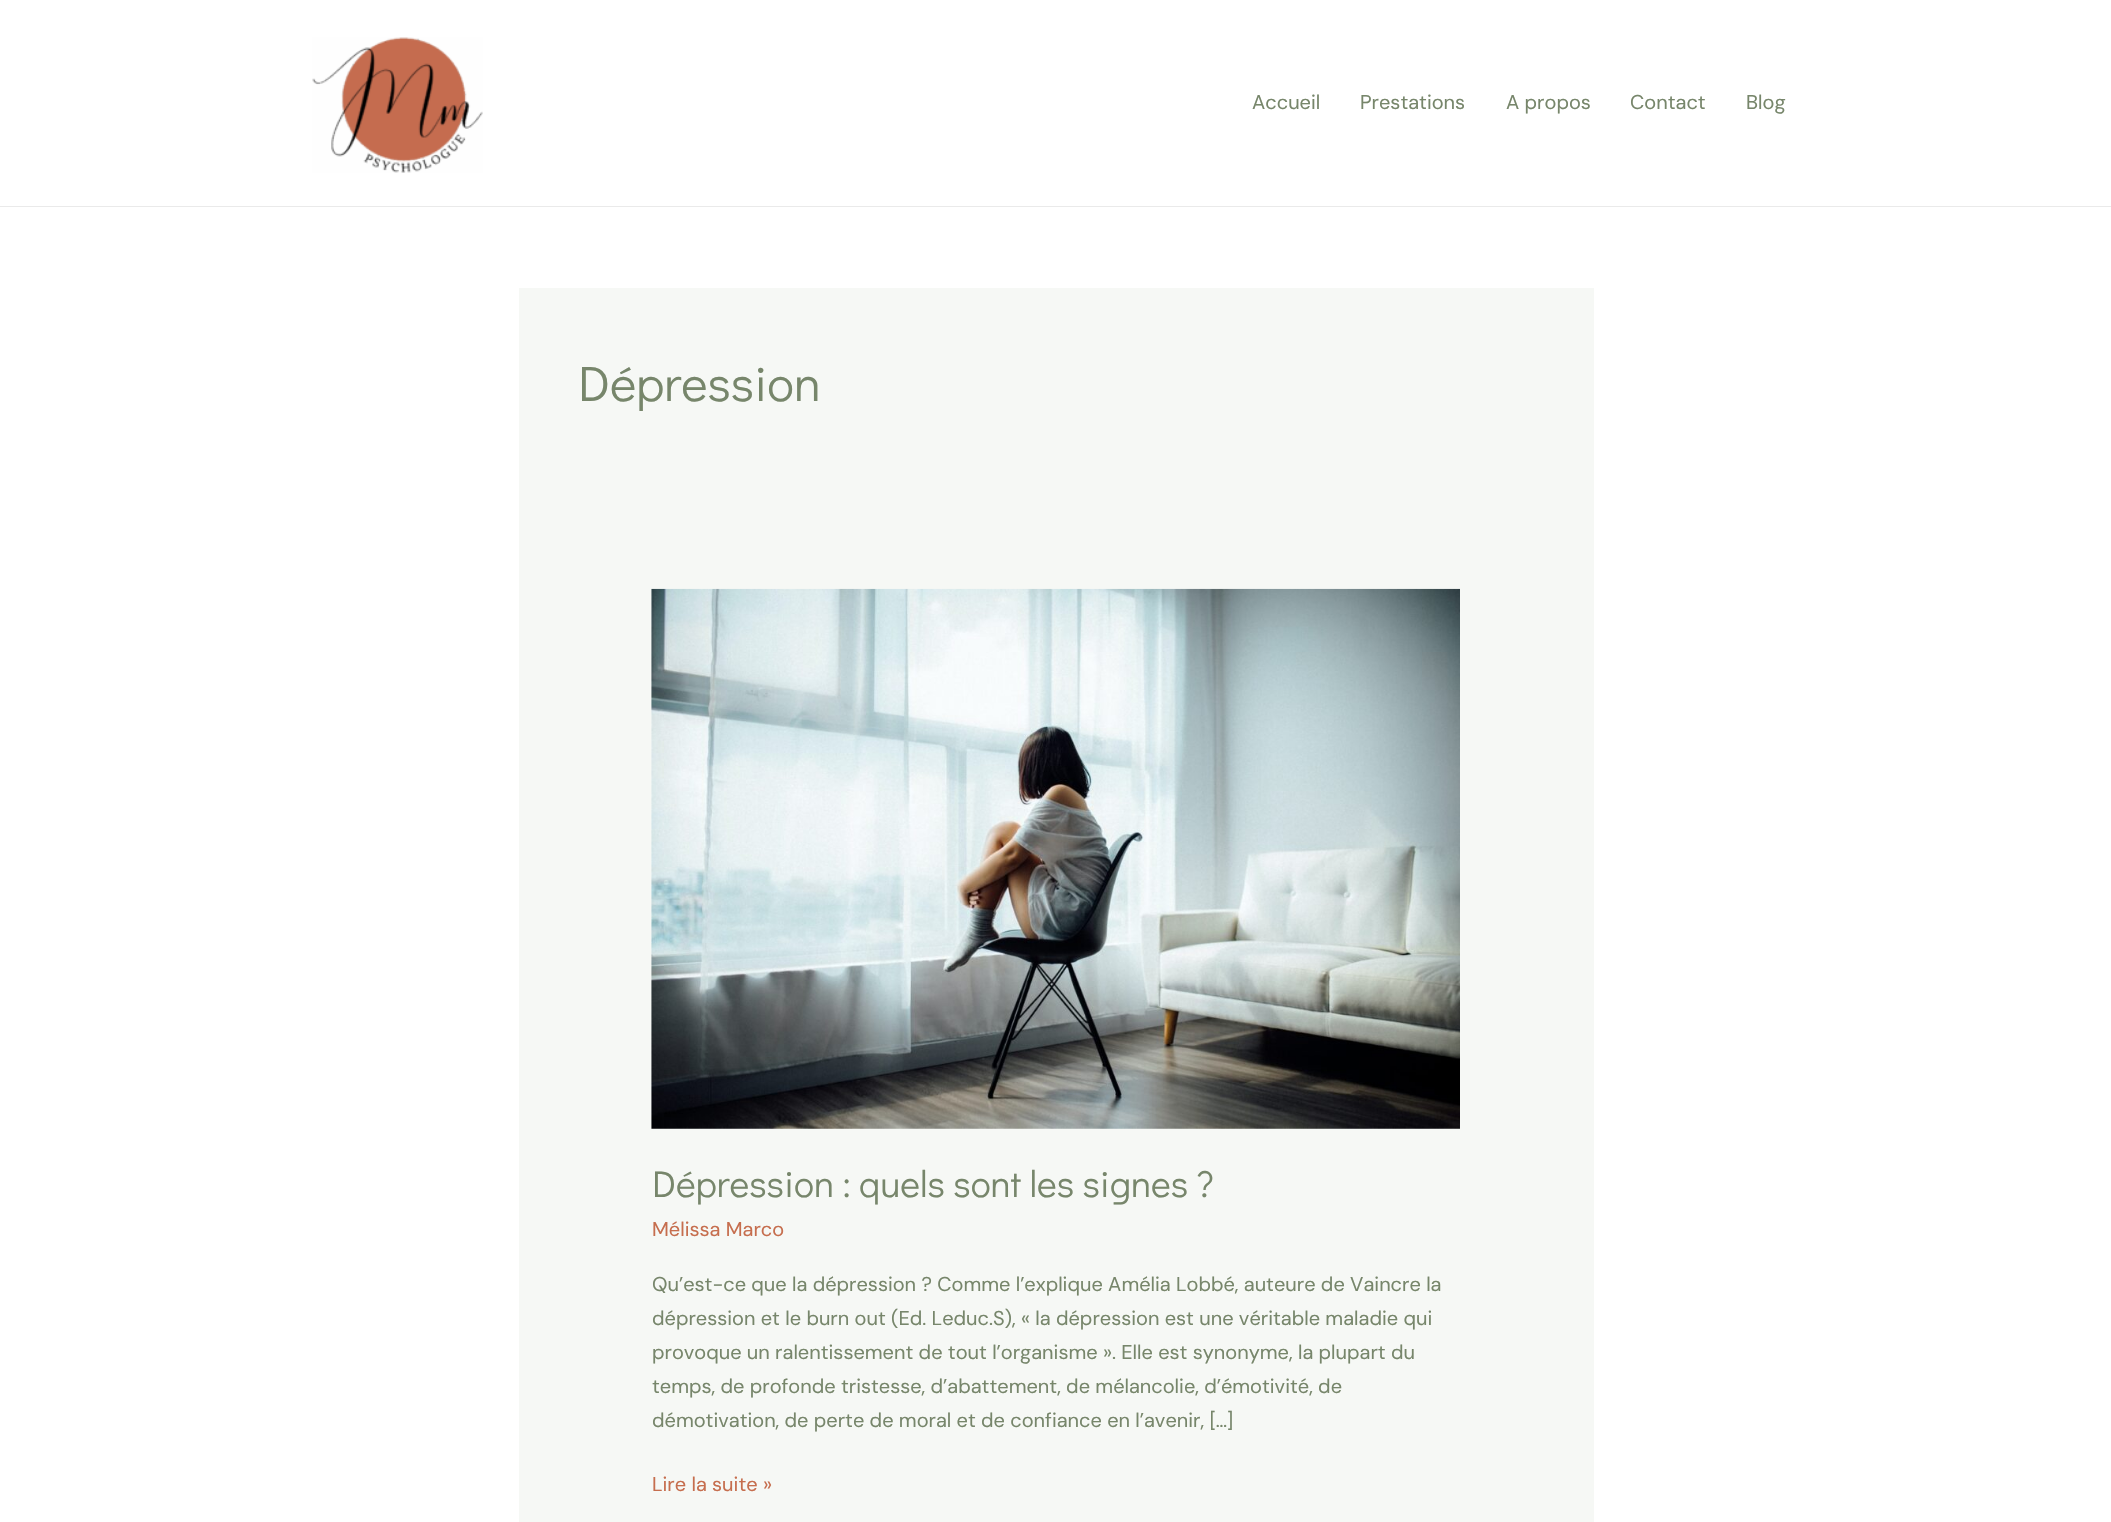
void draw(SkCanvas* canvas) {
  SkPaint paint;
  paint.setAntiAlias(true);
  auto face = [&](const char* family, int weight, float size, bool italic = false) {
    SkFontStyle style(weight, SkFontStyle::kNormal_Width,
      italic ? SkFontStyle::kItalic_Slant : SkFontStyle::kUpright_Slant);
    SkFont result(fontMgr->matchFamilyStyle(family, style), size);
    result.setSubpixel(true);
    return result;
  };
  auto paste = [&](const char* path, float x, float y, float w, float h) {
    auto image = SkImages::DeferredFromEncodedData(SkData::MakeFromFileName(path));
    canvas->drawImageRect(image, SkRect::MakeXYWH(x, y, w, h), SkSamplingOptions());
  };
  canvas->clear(0xffffffff);
  paint.setColor(0xffeaeaea);
  canvas->drawRect(SkRect::MakeXYWH(0, 206, 2111, 1), paint);
  paste("img/1.png", 312, 37, 171, 136);
  paint.setColor(0xfff6f8f5);
  canvas->drawRect(SkRect::MakeXYWH(519, 288, 1075, 1234), paint);
  paste("img/2.png", 651, 588, 809, 541);
  auto f0 = face("DM Sans", 400, 20);
  paint.setColor(0xff77866b);
  {
    const struct { const char* s; float x, y; } items[] = {
      {"Accueil", 1252, 109},
      {"Prestations", 1360, 109},
      {"A propos", 1506, 109},
      {"Contact", 1630, 109},
      {"Blog", 1746, 109},
    };
    for (auto [s, x, y] : items) {
      canvas->drawString(s, x, y, f0, paint);
    }
  }
  auto f1 = face("Didact Gothic", 400, 50);
  canvas->drawString("Dépression", 578, 401, f1, paint);
  auto f2 = face("Didact Gothic", 400, 37.5f);
  canvas->drawString("Dépression : quels sont les signes ?", 652, 1197, f2, paint);
  paint.setColor(0xffc66e4e);
  canvas->drawString("Mélissa Marco", 652, 1236, f0, paint);
  paint.setColor(0xff77866b);
  {
    const struct { const char* s; float x, y; } items[] = {
      {"Qu’est-ce que la dépression ? Comme l’explique Amélia Lobbé, auteure de Vaincre la", 652, 1291},
      {"dépression et le burn out (Ed. Leduc.S), « la dépression est une véritable maladie qui", 652, 1325},
      {"provoque un ralentissement de tout l’organisme ». Elle est synonyme, la plupart du", 652, 1359},
      {"temps, de profonde tristesse, d’abattement, de mélancolie, d’émotivité, de", 652, 1393},
      {"démotivation, de perte de moral et de confiance en l’avenir, […]", 652, 1427},
    };
    for (auto [s, x, y] : items) {
      canvas->drawString(s, x, y, f0, paint);
    }
  }
  paint.setColor(0xffc66e4e);
  canvas->drawString("Lire la suite »", 652, 1491, f0, paint);
}
